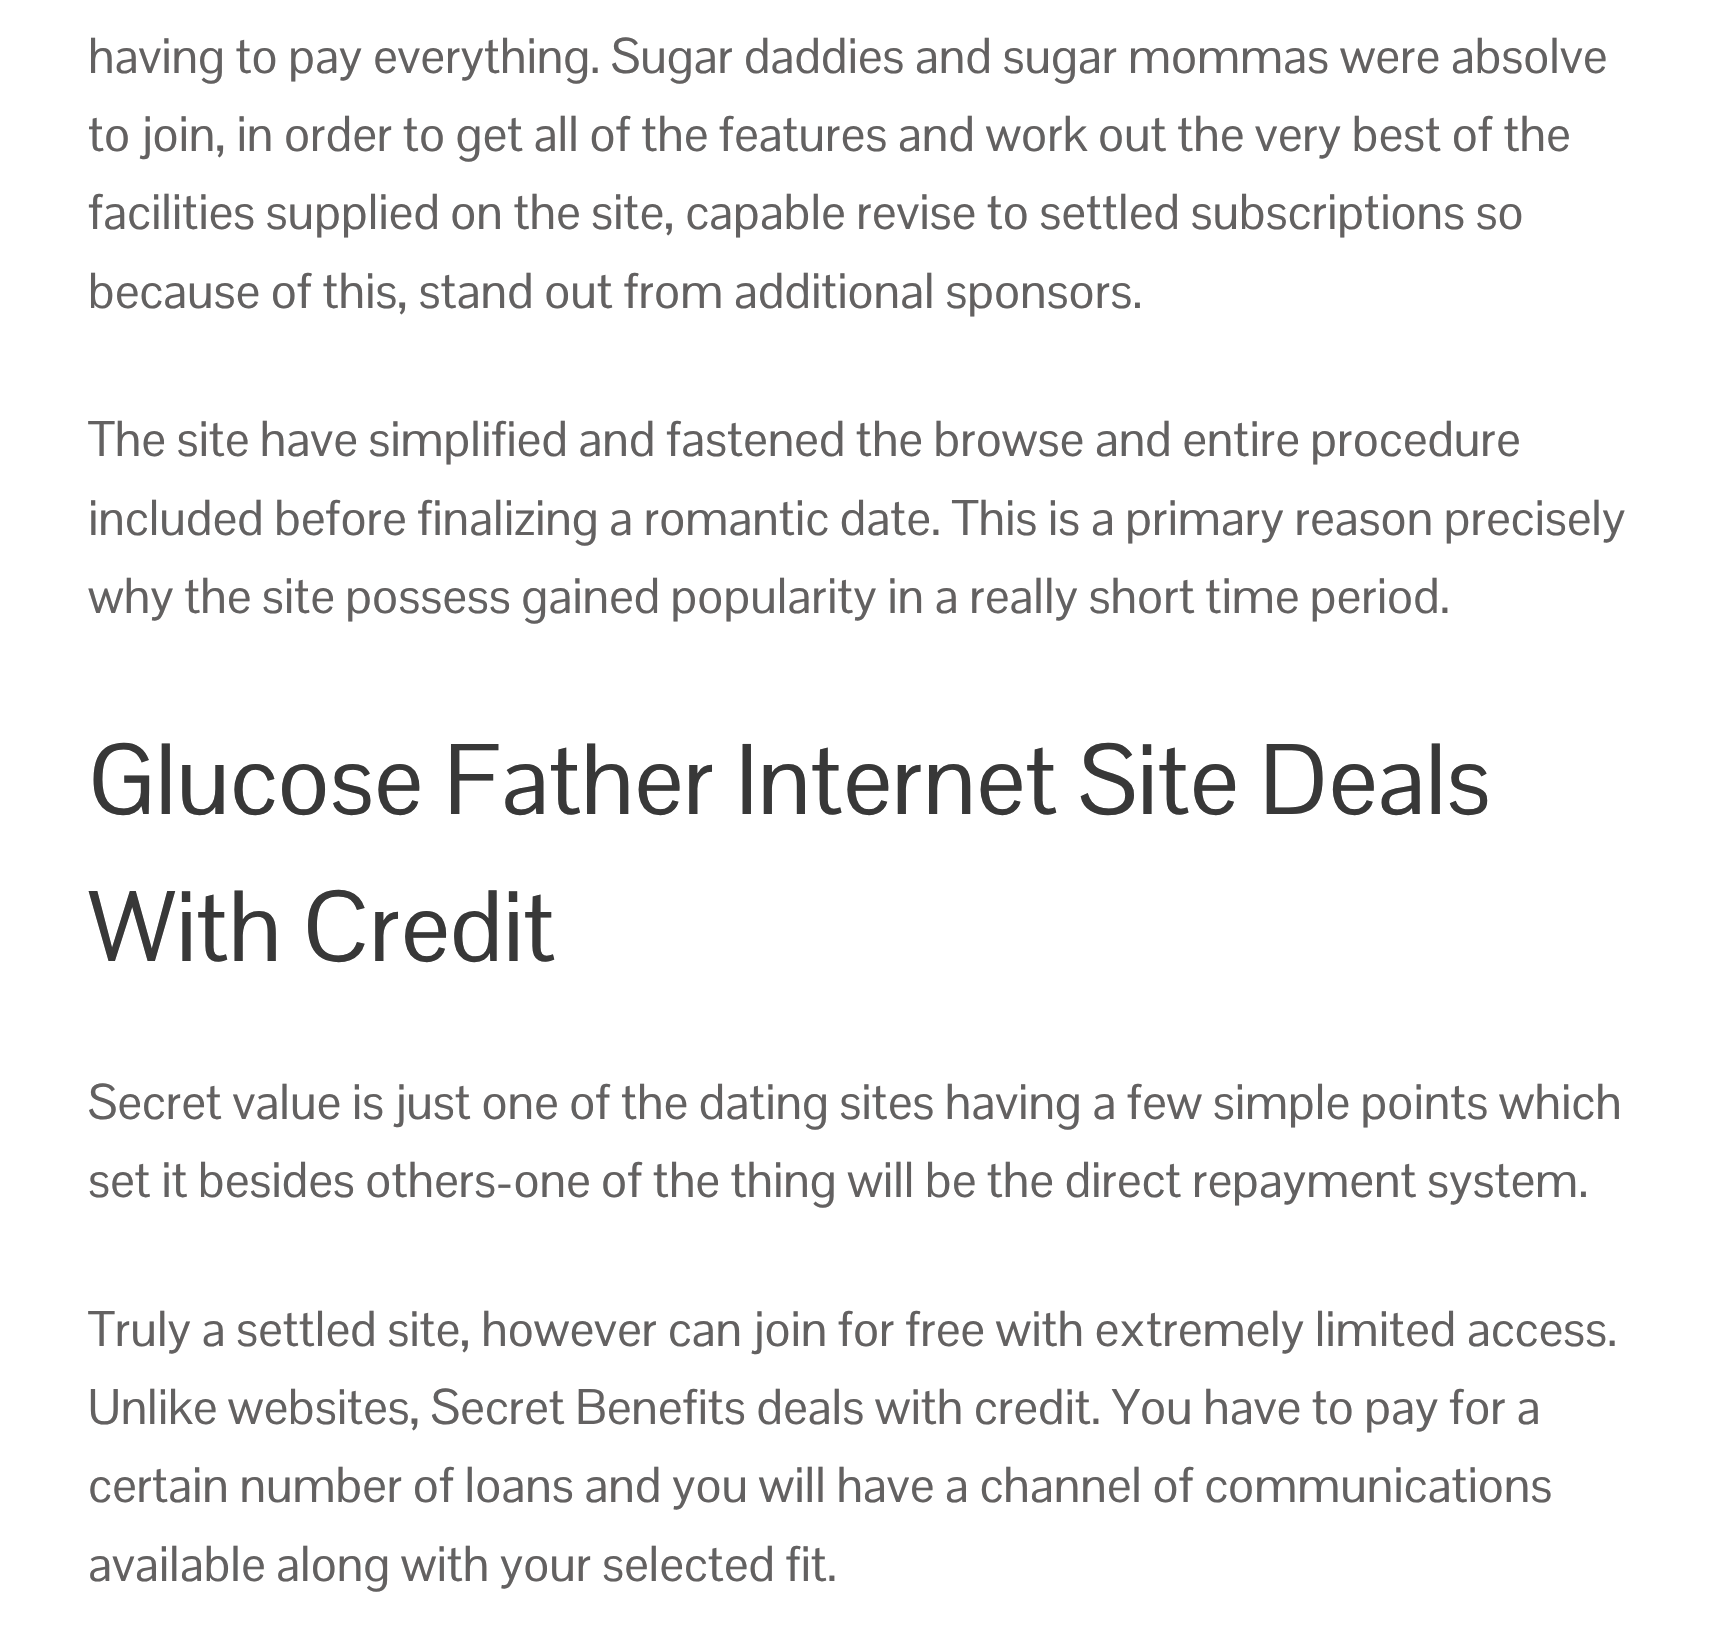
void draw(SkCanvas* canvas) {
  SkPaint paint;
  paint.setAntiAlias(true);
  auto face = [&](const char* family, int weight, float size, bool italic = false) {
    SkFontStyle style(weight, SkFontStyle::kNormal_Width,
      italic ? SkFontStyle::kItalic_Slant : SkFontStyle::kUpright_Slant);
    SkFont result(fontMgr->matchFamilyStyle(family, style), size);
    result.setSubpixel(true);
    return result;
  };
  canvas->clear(0xffffffff);
  auto f0 = face("Pontano Sans", 400, 49);
  paint.setColor(0xff636161);
  {
    const struct { const char* s; float x, y; } items[] = {
      {"having to pay everything. Sugar daddies and sugar mommas were absolve", 88, 73},
      {"to join, in order to get all of the features and work out the very best of the", 88, 151},
      {"facilities supplied on the site, capable revise to settled subscriptions so", 88, 229},
      {"because of this, stand out from additional sponsors.", 88, 308},
      {"The site have simplified and fastened the browse and entire procedure", 88, 456},
      {"included before finalizing a romantic date. This is a primary reason precisely", 88, 535},
      {"why the site possess gained popularity in a really short time period.", 88, 613},
    };
    for (auto [s, x, y] : items) {
      canvas->drawString(s, x, y, f0, paint);
    }
  }
  auto f1 = face("Pontano Sans", 400, 98);
  paint.setColor(0xff383838);
  canvas->drawString("Glucose Father Internet Site Deals", 88, 814, f1, paint);
  canvas->drawString("With Credit", 88, 961, f1, paint);
  paint.setColor(0xff636161);
  {
    const struct { const char* s; float x, y; } items[] = {
      {"Secret value is just one of the dating sites having a few simple points which", 88, 1119},
      {"set it besides others-one of the thing will be the direct repayment system.", 88, 1197},
      {"Truly a settled site, however can join for free with extremely limited access.", 88, 1346},
      {"Unlike websites, Secret Benefits deals with credit. You have to pay for a", 88, 1424},
      {"certain number of loans and you will have a channel of communications", 88, 1502},
      {"available along with your selected fit.", 88, 1581},
    };
    for (auto [s, x, y] : items) {
      canvas->drawString(s, x, y, f0, paint);
    }
  }
}
